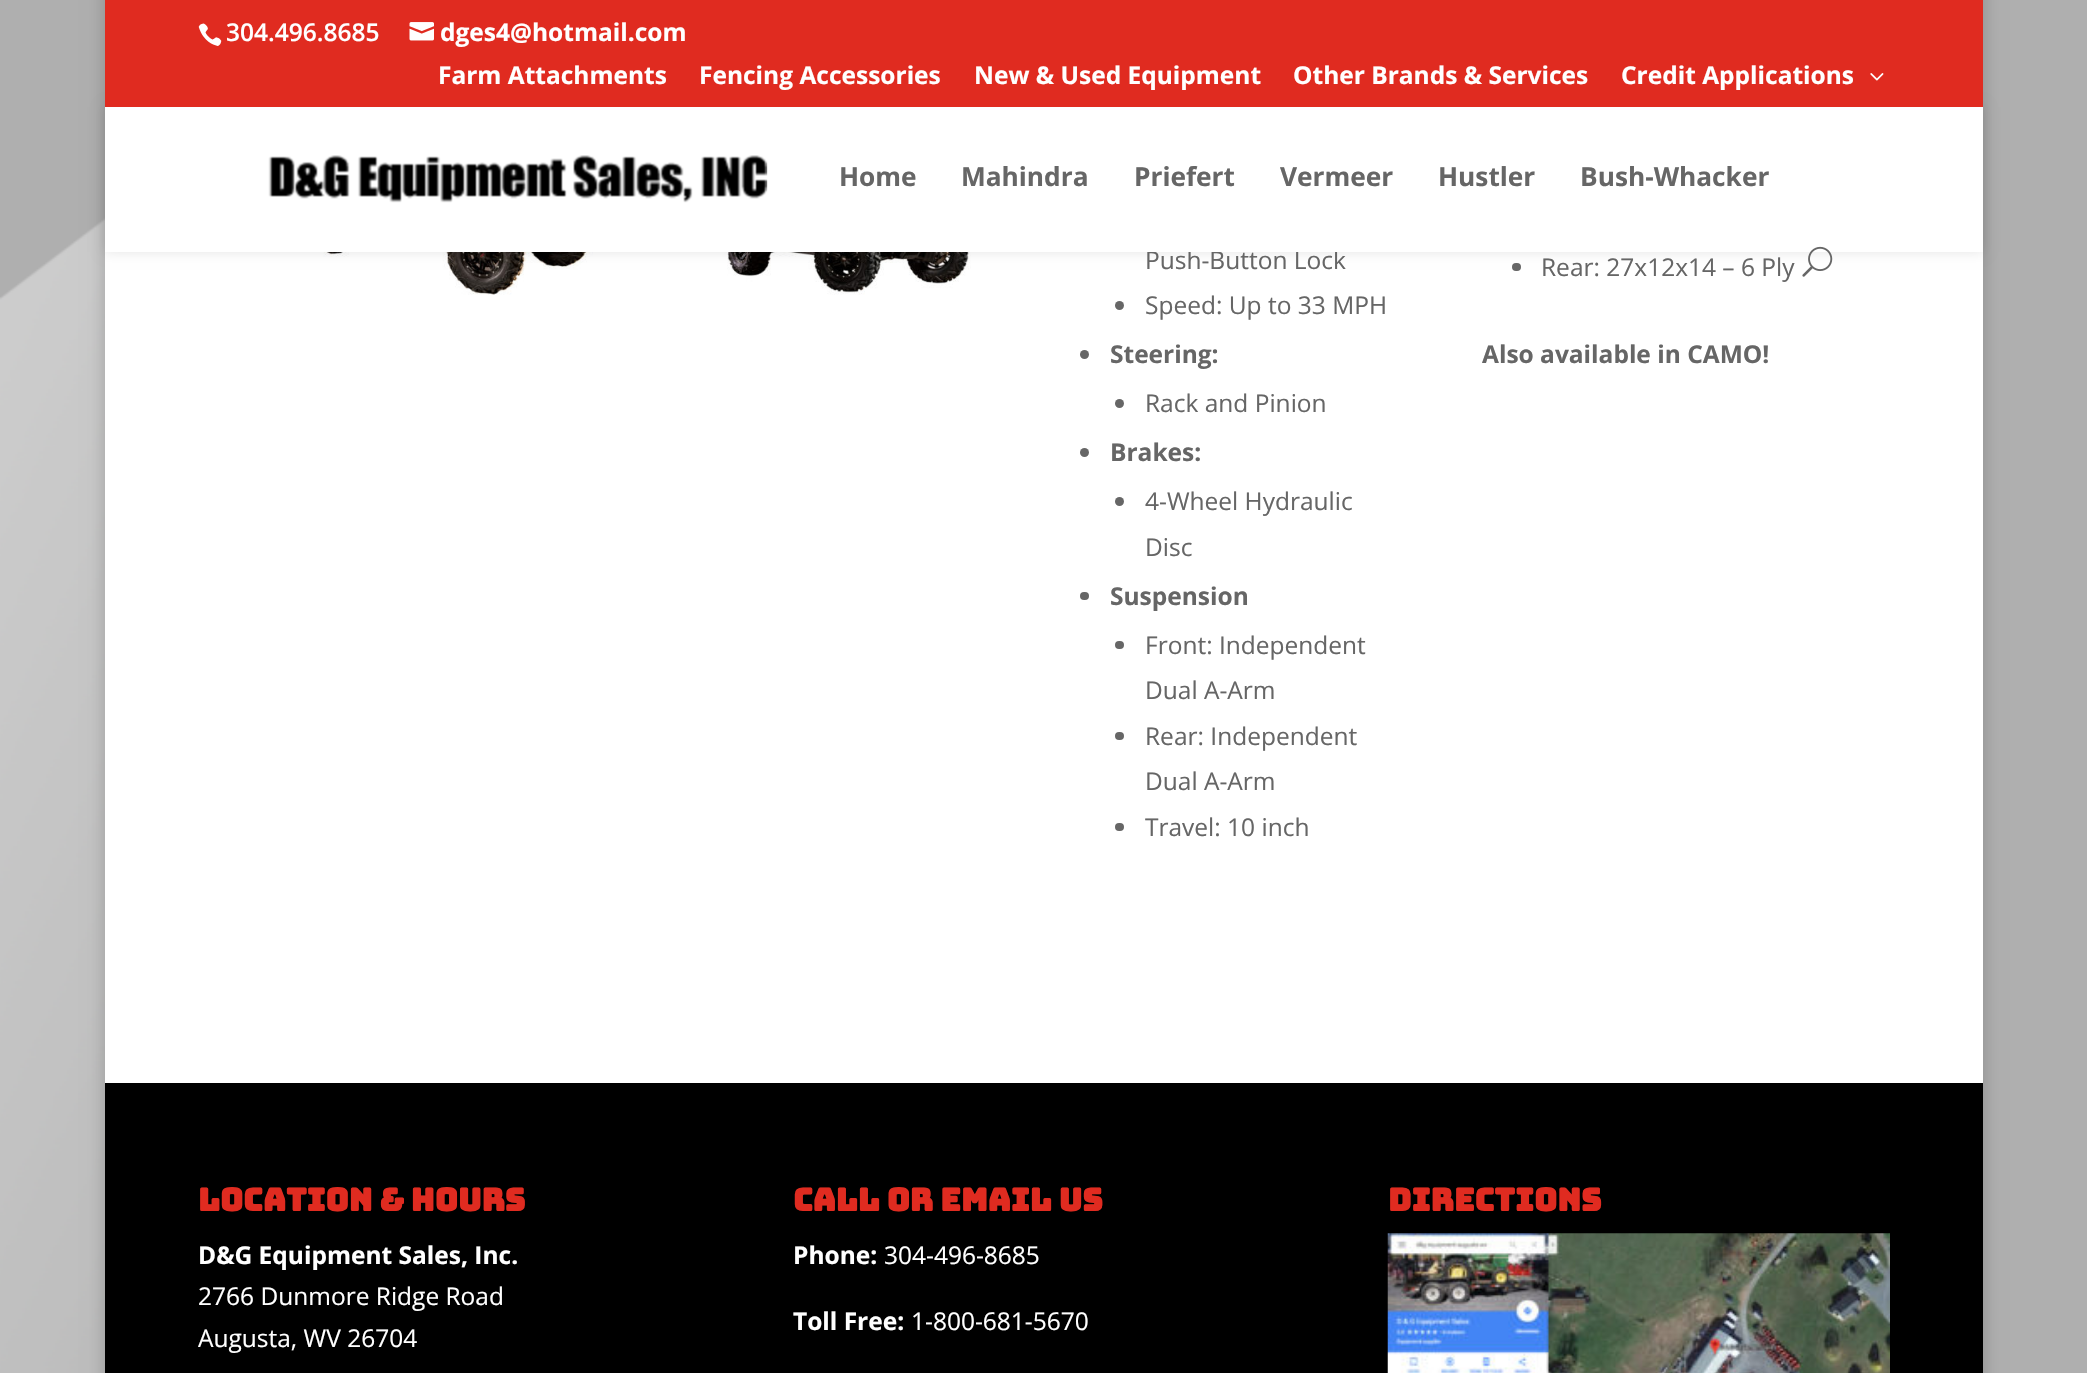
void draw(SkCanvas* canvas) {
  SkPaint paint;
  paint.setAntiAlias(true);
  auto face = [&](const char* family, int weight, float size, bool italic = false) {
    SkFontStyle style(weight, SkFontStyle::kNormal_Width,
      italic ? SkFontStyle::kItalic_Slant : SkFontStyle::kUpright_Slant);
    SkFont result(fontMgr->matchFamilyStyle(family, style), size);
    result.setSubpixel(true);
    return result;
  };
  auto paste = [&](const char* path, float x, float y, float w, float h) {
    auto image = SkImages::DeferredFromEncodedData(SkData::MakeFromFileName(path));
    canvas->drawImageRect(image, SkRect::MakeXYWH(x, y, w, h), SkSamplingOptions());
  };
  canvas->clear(0xffafafaf);
  paste("img/1.png", 0, 0, 105, 1373);
  paint.setColor(0x33000000);
  paint.setMaskFilter(SkMaskFilter::MakeBlur(kNormal_SkBlurStyle, 9));
  canvas->drawRect(SkRect::MakeXYWH(105, -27, 1878, 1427), paint);
  paint.setMaskFilter(nullptr);
  paint.setColor(0xffffffff);
  canvas->drawRect(SkRect::MakeXYWH(105, 252, 1878, 831), paint);
  paste("img/7.png", 307, 252, 286, 43);
  paste("img/8.png", 720, 252, 251, 43);
  paint.setColor(0xff666666);
  canvas->drawRoundRect(SkRect::MakeXYWH(1512, 263, 9, 8), 4, 4, paint);
  paint.setColor(0x1a000000);
  paint.setMaskFilter(SkMaskFilter::MakeBlur(kNormal_SkBlurStyle, 6));
  canvas->drawRect(SkRect::MakeXYWH(105, 107, 1878, 145), paint);
  paint.setMaskFilter(nullptr);
  paint.setColor(0xffe02b20);
  canvas->drawRect(SkRect::MakeXYWH(105, 0, 1878, 107), paint);
  paste("img/2.png", 198, 23, 24, 23);
  paste("img/3.png", 409, 22, 25, 19);
  paste("img/4.png", 1870, 73, 14, 8);
  paint.setColor(0xff666666);
  canvas->drawCircle(1119.5f, 305.5f, 4.5f, paint);
  canvas->drawCircle(1084.5f, 354.5f, 4.5f, paint);
  canvas->drawCircle(1119.5f, 403.5f, 4.5f, paint);
  canvas->drawCircle(1084.5f, 452.5f, 4.5f, paint);
  canvas->drawCircle(1119.5f, 501.5f, 4.5f, paint);
  canvas->drawRoundRect(SkRect::MakeXYWH(1080, 592, 9, 8), 4, 4, paint);
  canvas->drawRoundRect(SkRect::MakeXYWH(1115, 641, 9, 8), 4, 4, paint);
  canvas->drawRoundRect(SkRect::MakeXYWH(1115, 732, 9, 8), 4, 4, paint);
  canvas->drawRoundRect(SkRect::MakeXYWH(1115, 823, 9, 8), 4, 4, paint);
  paint.setColor(0xff000000);
  canvas->drawRect(SkRect::MakeXYWH(105, 1083, 1878, 290), paint);
  paste("img/9.png", 1387, 1233, 503, 140);
  auto f0 = face("Open Sans", 600, 24.5f);
  paint.setColor(0xffffffff);
  canvas->drawString("304.496.8685", 226, 41, f0, paint);
  auto f1 = face("Open Sans", 700, 24.5f);
  {
    const struct { const char* s; float x, y; } items[] = {
      {"dges4@hotmail.com", 440, 41},
      {"Farm Attachments", 438, 84},
      {"Fencing Accessories", 699, 84},
      {"New & Used Equipment", 974, 84},
      {"Other Brands & Services", 1293, 84},
      {"Credit Applications", 1621, 84},
    };
    for (auto [s, x, y] : items) {
      canvas->drawString(s, x, y, f1, paint);
    }
  }
  auto f2 = face("Open Sans", 400, 24.5f);
  paint.setColor(0xff666666);
  canvas->drawString("Push-Button Lock", 1145, 269, f2, paint);
  paint.setColor(0xffffffff);
  canvas->drawRect(SkRect::MakeXYWH(105, 107, 1878, 145), paint);
  paste("img/6.png", 1802, 246, 31, 31);
  auto f3 = face("Open Sans", 700, 26.25f);
  paint.setColor(0xff666666);
  {
    const struct { const char* s; float x, y; } items[] = {
      {"Bush-Whacker", 1580, 186},
      {"Hustler", 1438, 186},
      {"Vermeer", 1280, 186},
      {"Priefert", 1134, 186},
      {"Mahindra", 961, 186},
      {"Home", 839, 186},
    };
    for (auto [s, x, y] : items) {
      canvas->drawString(s, x, y, f3, paint);
    }
  }
  paste("img/5.png", 268, 155, 500, 48);
  canvas->drawString("Speed: Up to 33 MPH", 1145, 314, f2, paint);
  canvas->drawString("Steering:", 1110, 363, f1, paint);
  canvas->drawString("Rack and Pinion", 1145, 412, f2, paint);
  canvas->drawString("Brakes:", 1110, 461, f1, paint);
  canvas->drawString("4-Wheel Hydraulic", 1145, 510, f2, paint);
  canvas->drawString("Disc", 1145, 556, f2, paint);
  canvas->drawString("Suspension", 1110, 605, f1, paint);
  {
    const struct { const char* s; float x, y; } items[] = {
      {"Front: Independent", 1145, 654},
      {"Dual A-Arm", 1145, 699},
      {"Rear: Independent", 1145, 745},
      {"Dual A-Arm", 1145, 790},
      {"Travel: 10 inch", 1145, 836},
      {"Rear: 27x12x14 – 6 Ply", 1541, 276},
    };
    for (auto [s, x, y] : items) {
      canvas->drawString(s, x, y, f2, paint);
    }
  }
  canvas->drawString("Also available in CAMO!", 1482, 363, f1, paint);
  auto f4 = face("Bungee", 700, 31.5f);
  paint.setColor(0xffe02b20);
  canvas->drawString("Location & Hours", 198, 1211, f4, paint);
  paint.setColor(0xffffffff);
  canvas->drawString("D&G Equipment Sales, Inc.", 198, 1264, f1, paint);
  canvas->drawString("2766 Dunmore Ridge Road", 198, 1305, f2, paint);
  canvas->drawString("Augusta, WV 26704", 198, 1347, f2, paint);
  paint.setColor(0xffe02b20);
  canvas->drawString("Call or Email Us", 793, 1211, f4, paint);
  paint.setColor(0xffffffff);
  canvas->drawString("Phone:", 793, 1264, f1, paint);
  canvas->drawString("304-496-8685", 884, 1264, f2, paint);
  canvas->drawString("Toll Free:", 793, 1330, f1, paint);
  canvas->drawString("1-800-681-5670", 911, 1330, f2, paint);
  paint.setColor(0xffe02b20);
  canvas->drawString("Directions", 1388, 1211, f4, paint);
}
